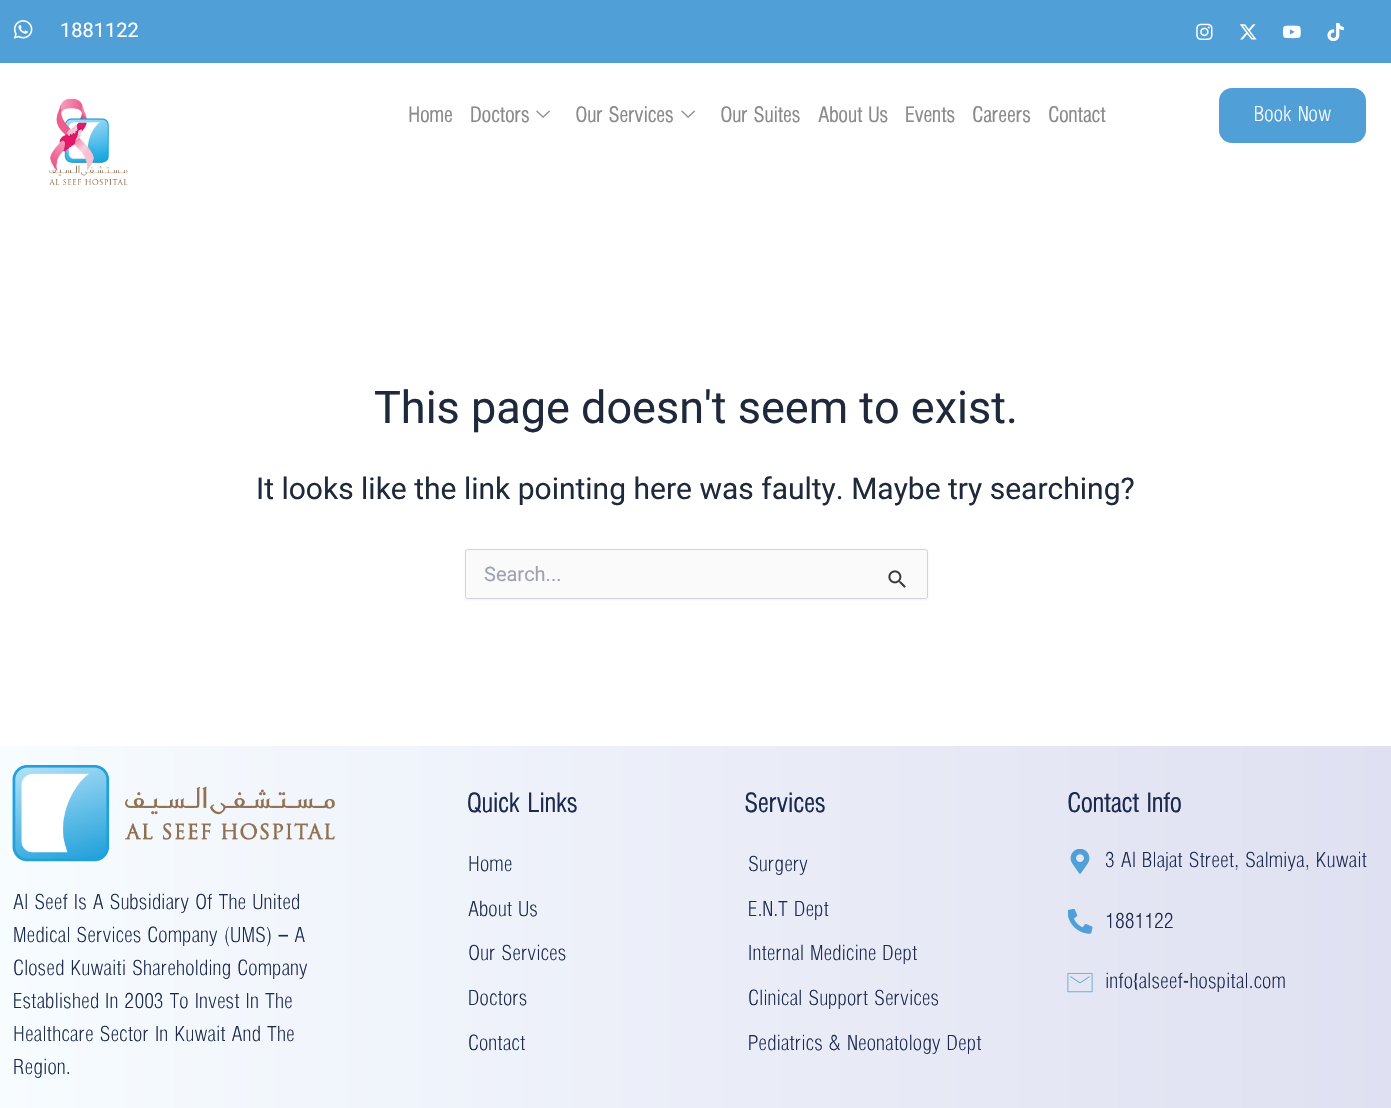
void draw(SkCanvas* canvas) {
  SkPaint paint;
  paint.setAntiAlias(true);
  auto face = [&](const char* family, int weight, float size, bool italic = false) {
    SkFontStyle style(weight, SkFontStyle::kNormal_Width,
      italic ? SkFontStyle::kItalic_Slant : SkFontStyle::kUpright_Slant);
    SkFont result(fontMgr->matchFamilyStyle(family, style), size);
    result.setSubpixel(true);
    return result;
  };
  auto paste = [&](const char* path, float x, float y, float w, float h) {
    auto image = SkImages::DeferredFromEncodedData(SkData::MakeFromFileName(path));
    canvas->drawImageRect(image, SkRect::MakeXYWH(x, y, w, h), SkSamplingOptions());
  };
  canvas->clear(0xffffffff);
  paint.setColor(0xff519fd7);
  canvas->drawRect(SkRect::MakeXYWH(0, 0, 1391, 63), paint);
  paste("img/1.png", 13, 20, 20, 19);
  paste("img/2.png", 1196, 23, 17, 17);
  paste("img/3.png", 1239, 24, 18, 16);
  paste("img/4.png", 1283, 25, 18, 14);
  paste("img/5.png", 1327, 23, 17, 18);
  paste("img/6.png", 49, 98, 79, 87);
  paste("img/7.png", 536, 110, 14, 8);
  paste("img/7.png", 681, 110, 14, 8);
  canvas->drawRoundRect(SkRect::MakeXYWH(1219, 88, 147, 55), 13, 13, paint);
  paint.setColor(0x0d000000);
  paint.setMaskFilter(SkMaskFilter::MakeBlur(kNormal_SkBlurStyle, 1));
  canvas->drawRoundRect(SkRect::MakeXYWH(465, 550, 463, 50), 2.5f, 2.5f, paint);
  paint.setMaskFilter(nullptr);
  paint.setColor(0xfffafafa);
  canvas->drawRoundRect(SkRect::MakeXYWH(465.5f, 549.5f, 462, 49), 2, 2, paint);
  paint.setStroke(true);
  paint.setStrokeWidth(1);
  paint.setColor(0xffd1d5db);
  canvas->drawRoundRect(SkRect::MakeXYWH(465.5f, 549.5f, 462, 49), 2, 2, paint);
  paste("img/8.png", 888, 570, 18, 18);
  paint.setStroke(false);
  {
    const SkColor colors[] = {0xfff7fcff, 0xffdfe0f1};
    const float stops[] = {0, 1};
    const SkPoint ends[] = {{0, 982}, {1391, 982}};
    paint.setShader(SkGradientShader::MakeLinear(ends, colors, stops, 2, SkTileMode::kClamp));
    paint.setAlpha(255);
  }
  canvas->drawRect(SkRect::MakeXYWH(0, 746, 1391, 362), paint);
  paste("img/9.png", 12, 765, 323, 97);
  paste("img/10.png", 1070, 849, 20, 25);
  paste("img/11.png", 1068, 909, 25, 25);
  paste("img/12.png", 1067, 973, 26, 20);
  auto f0 = face("Roboto", 400, 20);
  paint.setShader(nullptr);
  paint.setColor(0xffffffff);
  canvas->drawString("1881122", 60, 37, f0, paint);
  auto f1 = face("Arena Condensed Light", 700, 20);
  paint.setColor(0xff8b8b8b);
  {
    const struct { const char* s; float x, y; } items[] = {
      {"Home", 408, 122},
      {"Doctors", 470, 122},
      {"Our Services", 575, 122},
      {"Our Suites", 720, 122},
      {"About Us", 818, 122},
      {"Events", 905, 122},
      {"Careers", 972, 122},
      {"Contact", 1048, 122},
    };
    for (auto [s, x, y] : items) {
      canvas->drawString(s, x, y, f1, paint);
    }
  }
  auto f2 = face("Arena Condensed Light", 300, 20);
  paint.setColor(0xffffffff);
  canvas->drawString("Book Now", 1254, 121, f2, paint);
  auto f3 = face("Roboto", 400, 45);
  paint.setColor(0xff1e293b);
  canvas->drawString("This page doesn't seem to exist.", 374, 423, f3, paint);
  auto f4 = face("Roboto", 400, 30);
  canvas->drawString("It looks like the link pointing here was faulty. Maybe try searching?", 256, 499, f4, paint);
  paint.setColor(0xff9ca3af);
  canvas->drawString("Search...", 484, 581, f0, paint);
  paint.setColor(0xff1c2a4d);
  {
    const struct { const char* s; float x, y; } items[] = {
      {"Al Seef Is A Subsidiary Of The United", 13, 909},
      {"Medical Services Company (UMS) – A", 13, 942},
      {"Closed Kuwaiti Shareholding Company", 13, 975},
      {"Established In 2003 To Invest In The", 13, 1008},
      {"Healthcare Sector In Kuwait And The", 13, 1041},
      {"Region.", 13, 1074},
    };
    for (auto [s, x, y] : items) {
      canvas->drawString(s, x, y, f2, paint);
    }
  }
  auto f5 = face("Arena Condensed Light", 700, 25);
  canvas->drawString("Quick Links", 467, 812, f5, paint);
  {
    const struct { const char* s; float x, y; } items[] = {
      {"Home", 468, 871},
      {"About Us", 468, 916},
      {"Our Services", 468, 960},
      {"Doctors", 468, 1005},
      {"Contact", 468, 1050},
    };
    for (auto [s, x, y] : items) {
      canvas->drawString(s, x, y, f2, paint);
    }
  }
  canvas->drawString("Services", 744, 812, f5, paint);
  {
    const struct { const char* s; float x, y; } items[] = {
      {"Surgery", 748, 871},
      {"E.N.T Dept", 748, 916},
      {"Internal Medicine Dept", 748, 960},
      {"Clinical Support Services", 748, 1005},
      {"Pediatrics & Neonatology Dept", 748, 1050},
    };
    for (auto [s, x, y] : items) {
      canvas->drawString(s, x, y, f2, paint);
    }
  }
  canvas->drawString("Contact Info", 1067, 812, f5, paint);
  {
    const struct { const char* s; float x, y; } items[] = {
      {"3 Al Blajat Street, Salmiya, Kuwait", 1105, 867},
      {"1881122", 1105, 928},
      {"info@alseef-hospital.com", 1105, 988},
    };
    for (auto [s, x, y] : items) {
      canvas->drawString(s, x, y, f2, paint);
    }
  }
}
